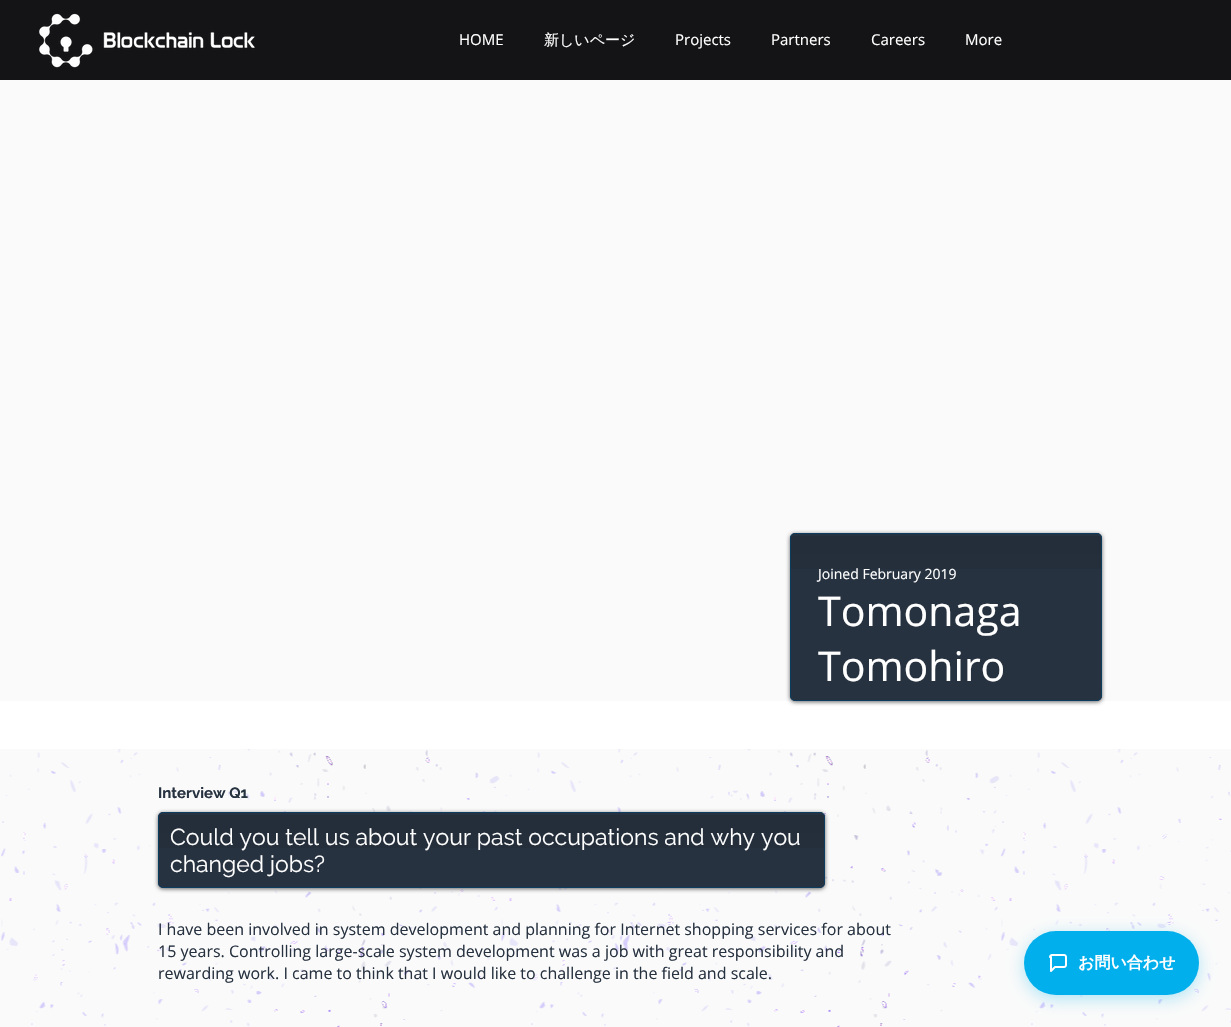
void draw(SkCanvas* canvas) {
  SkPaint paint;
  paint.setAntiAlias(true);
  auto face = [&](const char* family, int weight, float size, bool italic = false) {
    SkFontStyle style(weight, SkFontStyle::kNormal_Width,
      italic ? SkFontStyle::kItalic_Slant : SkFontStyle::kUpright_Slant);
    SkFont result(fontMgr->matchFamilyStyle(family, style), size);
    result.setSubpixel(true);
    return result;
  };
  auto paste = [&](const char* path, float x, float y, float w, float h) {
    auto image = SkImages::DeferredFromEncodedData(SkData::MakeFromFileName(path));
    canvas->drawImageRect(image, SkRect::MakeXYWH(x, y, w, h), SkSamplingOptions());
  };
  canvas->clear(0xffffffff);
  paint.setColor(0xff141416);
  canvas->drawRect(SkRect::MakeXYWH(0, 0, 1231, 80), paint);
  paste("img/1.png", 39, 13, 216, 55);
  paint.setColor(0xfffafafa);
  canvas->drawRect(SkRect::MakeXYWH(0, 80, 1231, 621), paint);
  paint.setColor(0x99000000);
  paint.setMaskFilter(SkMaskFilter::MakeBlur(kNormal_SkBlurStyle, 2));
  canvas->drawRoundRect(SkRect::MakeXYWH(790, 534, 312, 168), 5, 5, paint);
  paint.setMaskFilter(nullptr);
  paint.setColor(0xff273240);
  canvas->drawRoundRect(SkRect::MakeXYWH(790, 533, 312, 168), 5, 5, paint);
  paste("img/2.png", 790, 536, 312, 33);
  paint.setStroke(true);
  paint.setStrokeWidth(1);
  paint.setColor(0xff0c3c60);
  canvas->drawRoundRect(SkRect::MakeXYWH(790.5f, 533.5f, 311, 167), 4.5f, 4.5f, paint);
  paint.setStroke(false);
  paint.setColor(0xfffafafa);
  canvas->drawRect(SkRect::MakeXYWH(0, 749, 1231, 278), paint);
  paste("img/3.png", 1, 749, 1230, 278);
  paint.setColor(0x99000000);
  paint.setMaskFilter(SkMaskFilter::MakeBlur(kNormal_SkBlurStyle, 2));
  canvas->drawRoundRect(SkRect::MakeXYWH(158, 813, 667, 76), 5, 5, paint);
  paint.setMaskFilter(nullptr);
  paint.setColor(0xff273240);
  canvas->drawRoundRect(SkRect::MakeXYWH(158, 812, 667, 76), 5, 5, paint);
  paste("img/4.png", 158, 815, 667, 33);
  paint.setStroke(true);
  paint.setColor(0xff0c3c60);
  canvas->drawRoundRect(SkRect::MakeXYWH(158.5f, 812.5f, 666, 75), 4.5f, 4.5f, paint);
  paint.setStroke(false);
  paint.setColor(0x4d00afec);
  paint.setMaskFilter(SkMaskFilter::MakeBlur(kNormal_SkBlurStyle, 8));
  canvas->drawRoundRect(SkRect::MakeXYWH(1024, 935, 175, 64), 32, 32, paint);
  paint.setMaskFilter(nullptr);
  paint.setColor(0xff00afec);
  canvas->drawRoundRect(SkRect::MakeXYWH(1024, 931, 175, 64), 32, 32, paint);
  paste("img/5.png", 1049, 954, 18, 18);
  auto f0 = face("Open Sans", 400, 15);
  paint.setColor(0xffffffff);
  canvas->drawString("HOME", 459, 45, f0, paint);
  auto f1 = face("WenQuanYi Zen Hei", 500, 15);
  canvas->drawString("新しいページ", 544, 45, f1, paint);
  {
    const struct { const char* s; float x, y; } items[] = {
      {"Projects", 675, 45},
      {"Partners", 771, 45},
      {"Careers", 871, 45},
      {"More", 965, 45},
    };
    for (auto [s, x, y] : items) {
      canvas->drawString(s, x, y, f0, paint);
    }
  }
  auto f2 = face("Open Sans", 400, 14);
  canvas->drawString("Joined February 2019", 818, 579, f2, paint);
  auto f3 = face("Open Sans", 400, 41);
  canvas->drawString("Tomonaga", 818, 626, f3, paint);
  canvas->drawString("Tomohiro", 818, 681, f3, paint);
  auto f4 = face("Raleway", 700, 15);
  paint.setColor(0xff273240);
  canvas->drawString("Interview Q1", 158, 798, f4, paint);
  auto f5 = face("Raleway", 400, 23);
  paint.setColor(0xffffffff);
  canvas->drawString("Could you tell us about your past occupations and why you", 170, 845, f5, paint);
  canvas->drawString("changed jobs?", 170, 872, f5, paint);
  auto f6 = face("Open Sans", 400, 16);
  paint.setColor(0xff273240);
  {
    const struct { const char* s; float x, y; } items[] = {
      {"I have been involved in system development and planning for Internet shopping services for about", 158, 935},
      {"15 years. Controlling large-scale system development was a job with great responsibility and", 158, 957},
      {"rewarding work. I came to think that I would like to challenge in the field and scale.", 158, 979},
    };
    for (auto [s, x, y] : items) {
      canvas->drawString(s, x, y, f6, paint);
    }
  }
  auto f7 = face("WenQuanYi Zen Hei", 700, 16);
  paint.setColor(0xffffffff);
  canvas->drawString("お問い合わせ", 1078, 968, f7, paint);
}
